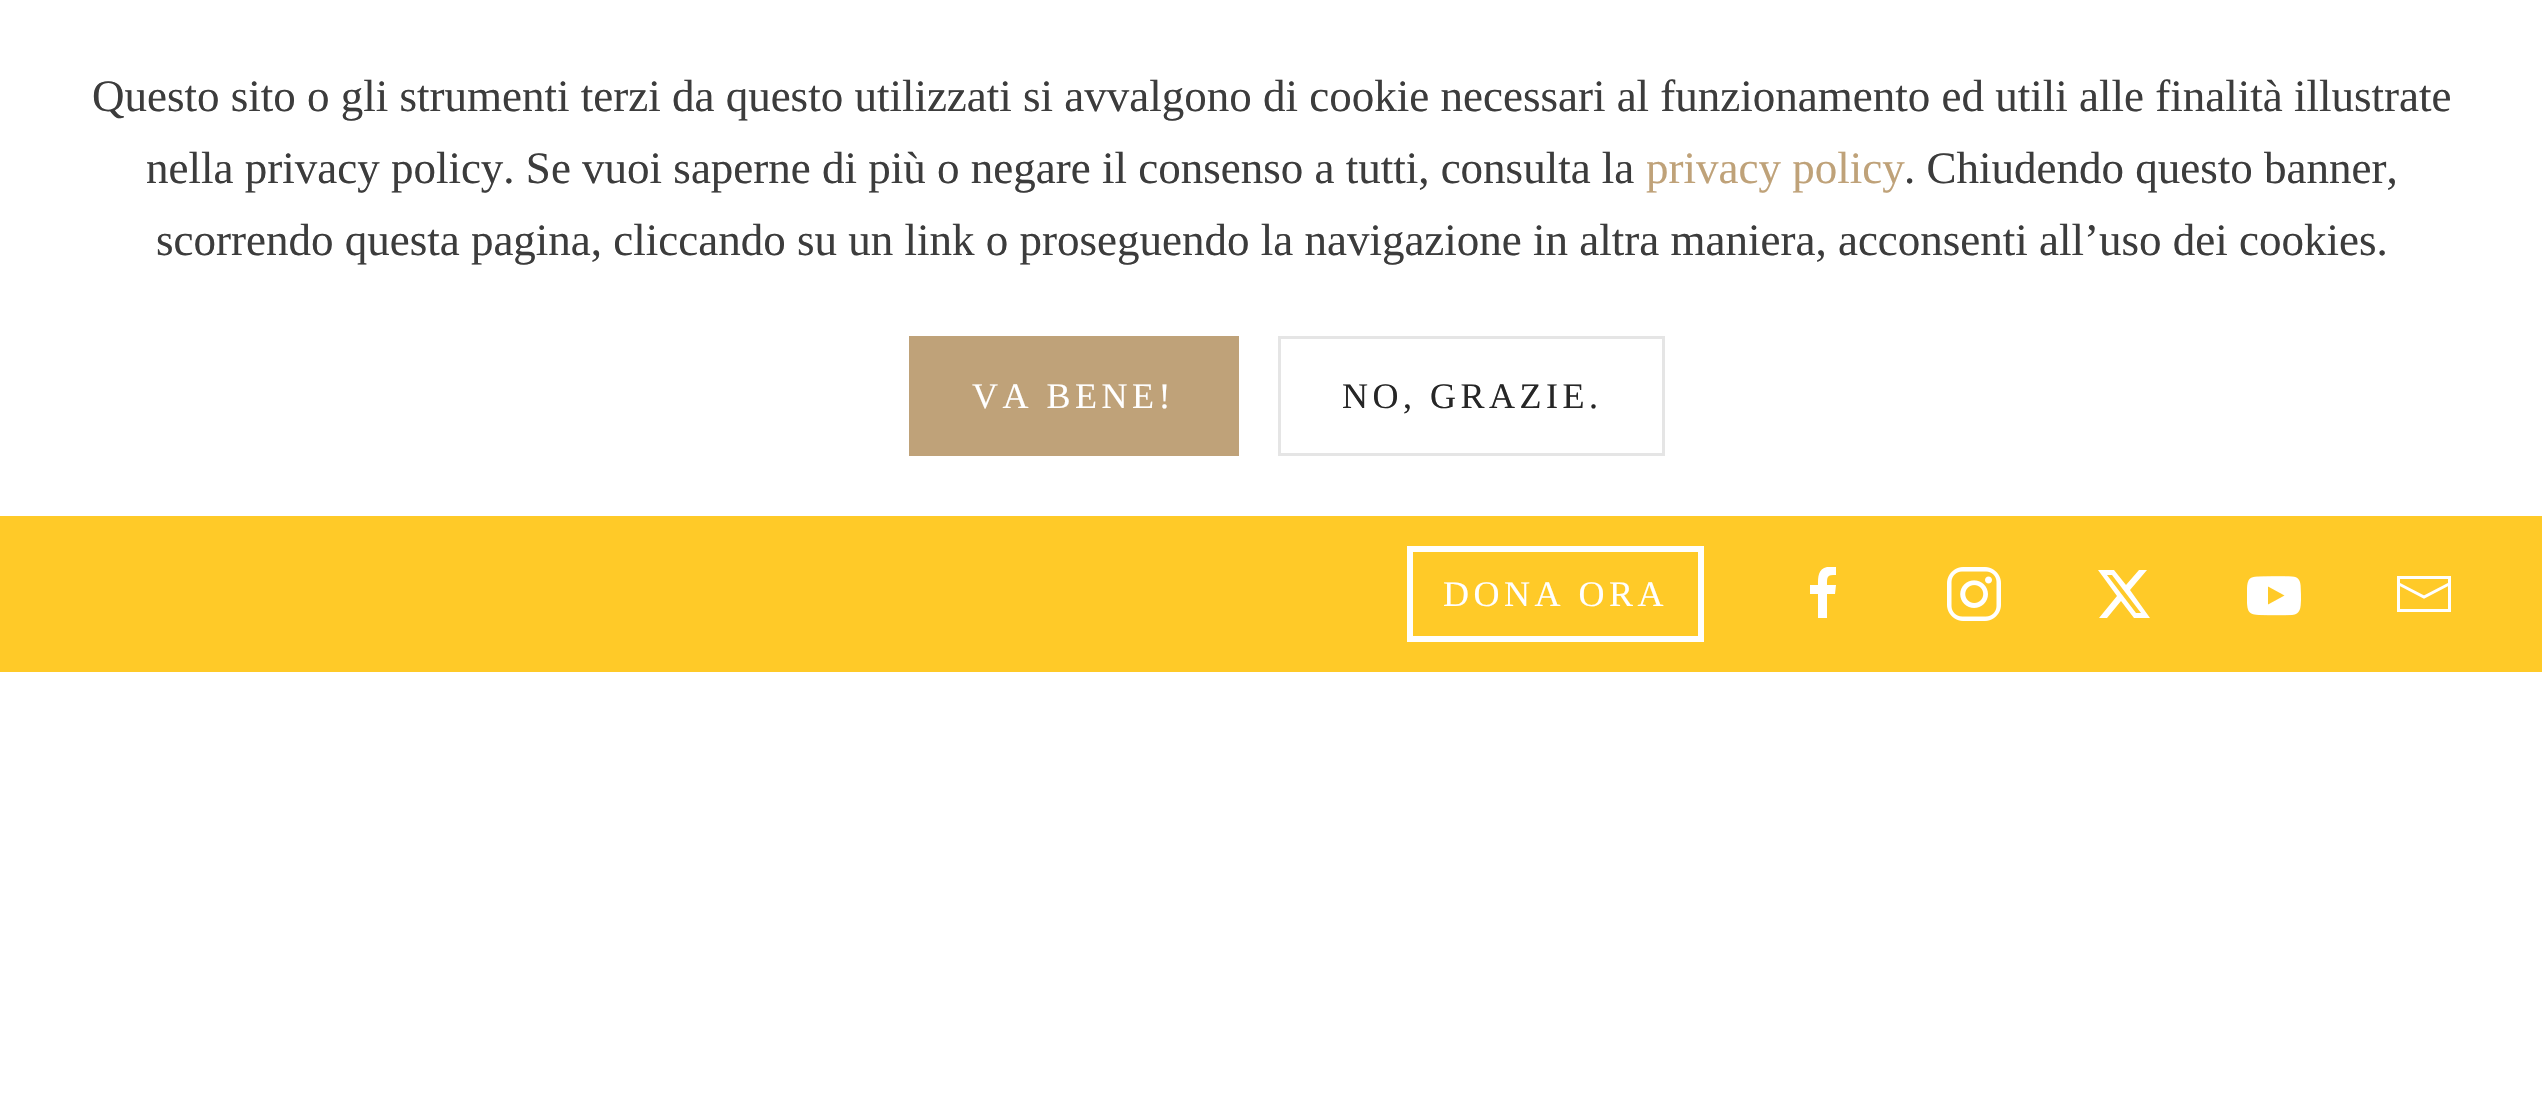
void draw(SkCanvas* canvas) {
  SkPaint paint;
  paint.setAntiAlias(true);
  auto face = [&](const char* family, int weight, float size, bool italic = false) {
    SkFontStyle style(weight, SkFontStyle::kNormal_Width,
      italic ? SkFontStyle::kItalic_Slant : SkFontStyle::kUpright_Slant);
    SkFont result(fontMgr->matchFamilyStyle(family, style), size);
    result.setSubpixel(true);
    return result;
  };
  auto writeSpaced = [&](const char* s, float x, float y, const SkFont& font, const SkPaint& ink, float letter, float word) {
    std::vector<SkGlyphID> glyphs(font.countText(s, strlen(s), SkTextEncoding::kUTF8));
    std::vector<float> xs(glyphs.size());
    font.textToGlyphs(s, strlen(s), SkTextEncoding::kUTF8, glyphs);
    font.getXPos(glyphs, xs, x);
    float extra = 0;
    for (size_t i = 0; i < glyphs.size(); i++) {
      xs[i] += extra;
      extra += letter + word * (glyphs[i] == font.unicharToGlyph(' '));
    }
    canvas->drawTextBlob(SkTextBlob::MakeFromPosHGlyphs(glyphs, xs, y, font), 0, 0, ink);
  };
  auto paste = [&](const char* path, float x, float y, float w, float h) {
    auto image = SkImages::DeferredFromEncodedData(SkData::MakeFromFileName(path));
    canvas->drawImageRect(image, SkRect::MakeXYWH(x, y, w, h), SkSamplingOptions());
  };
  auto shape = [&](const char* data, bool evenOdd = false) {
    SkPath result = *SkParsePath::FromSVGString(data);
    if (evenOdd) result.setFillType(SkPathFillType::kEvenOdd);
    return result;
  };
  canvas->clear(0xffffffff);
  paint.setColor(0xffbfa279);
  canvas->drawRect(SkRect::MakeXYWH(909, 336, 330, 120), paint);
  paint.setStroke(true);
  paint.setStrokeWidth(3);
  paint.setColor(0xffe5e5e5);
  canvas->drawRect(SkRect::MakeXYWH(1279.5f, 337.5f, 384, 117), paint);
  paint.setStroke(false);
  paint.setColor(0xffffca28);
  canvas->drawRect(SkRect::MakeXYWH(0, 516, 2542, 156), paint);
  paint.setStroke(true);
  paint.setStrokeWidth(6);
  paint.setColor(0xffffffff);
  canvas->drawRect(SkRect::MakeXYWH(1410, 549, 291, 90), paint);
  paint.setStroke(false);
  canvas->drawPath(shape("M1827 594H1835L1836 585H1827C1827 576 1827 575 1836 575V567H1827C1818 569 1818 577 1818 585H1810V594H1818V618H1827Z"), paint);
  paste("img/1.png", 1947, 567, 54, 54);
  canvas->drawPath(shape("M2139 570H2147L2130 590L2150 618H2134L2121 601L2107 618H2099L2117 596L2098 570H2114L2126 585ZM2136 613H2141L2112 575H2107Z"), paint);
  paste("img/2.png", 2247, 576, 54, 40);
  paint.setStroke(true);
  paint.setStrokeWidth(3);
  canvas->drawPath(shape("M2398 583.5L2424 597L2450 583.5"), paint);
  paint.setStroke(false);
  canvas->drawPath(shape("M2397 576V612H2451V576ZM2448 609H2400V579H2448Z"), paint);
  auto f0 = face("Liberation Serif", 400, 45);
  paint.setColor(0xff3c3c3c);
  canvas->drawString("Questo sito o gli strumenti terzi da questo utilizzati si avvalgono di cookie necessari al funzionamento ed utili alle finalità illustrate", 92, 111, f0, paint);
  canvas->drawString("nella privacy policy. Se vuoi saperne di più o negare il consenso a tutti, consulta la", 146, 183, f0, paint);
  paint.setColor(0xffbfa279);
  canvas->drawString("privacy policy", 1646, 183, f0, paint);
  paint.setColor(0xff3c3c3c);
  canvas->drawString(". Chiudendo questo banner,", 1904, 183, f0, paint);
  canvas->drawString("scorrendo questa pagina, cliccando su un link o proseguendo la navigazione in altra maniera, acconsenti all’uso dei cookies.", 156, 255, f0, paint);
  auto f1 = face("Liberation Serif", 400, 36);
  paint.setColor(0xffffffff);
  writeSpaced("VA BENE!", 972, 408, f1, paint, 4.5f, 0);
  paint.setColor(0xff262626);
  writeSpaced("NO, GRAZIE.", 1342, 408, f1, paint, 4.5f, 0);
  paint.setColor(0xffffffff);
  writeSpaced("DONA ORA", 1443, 606, f1, paint, 4.5f, 0);
}
